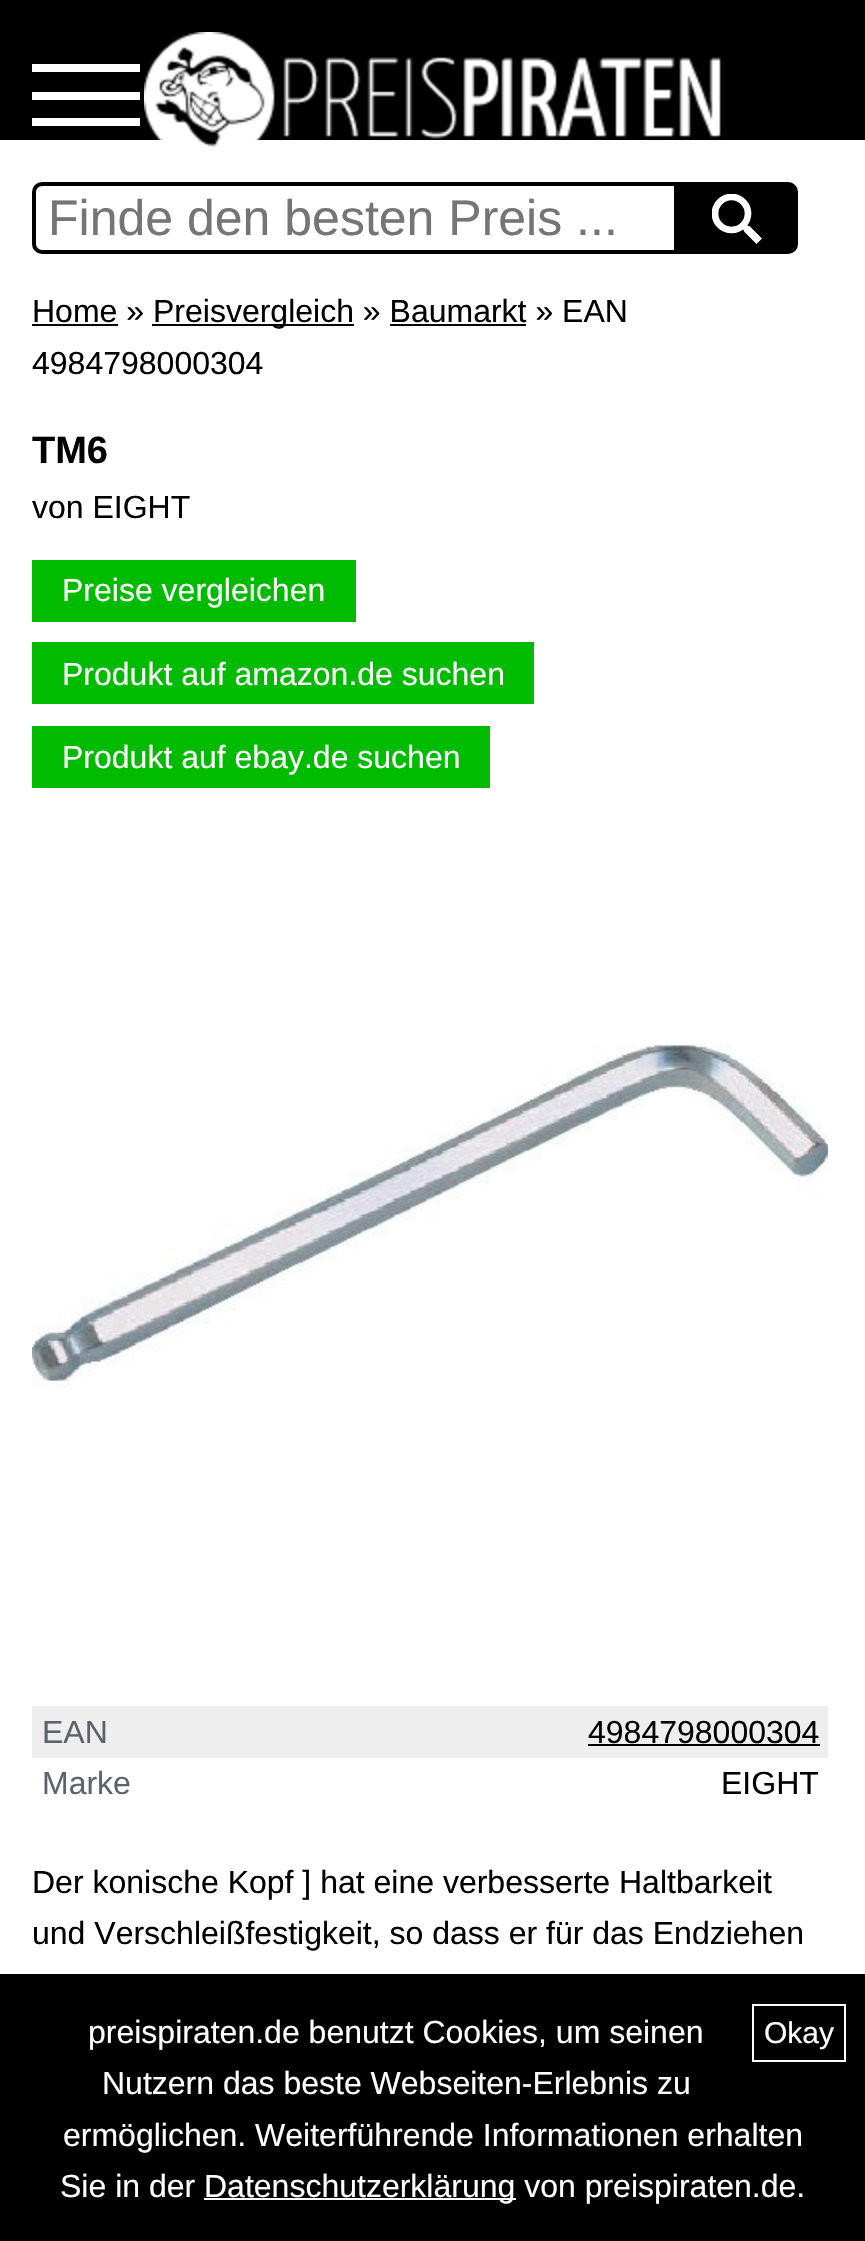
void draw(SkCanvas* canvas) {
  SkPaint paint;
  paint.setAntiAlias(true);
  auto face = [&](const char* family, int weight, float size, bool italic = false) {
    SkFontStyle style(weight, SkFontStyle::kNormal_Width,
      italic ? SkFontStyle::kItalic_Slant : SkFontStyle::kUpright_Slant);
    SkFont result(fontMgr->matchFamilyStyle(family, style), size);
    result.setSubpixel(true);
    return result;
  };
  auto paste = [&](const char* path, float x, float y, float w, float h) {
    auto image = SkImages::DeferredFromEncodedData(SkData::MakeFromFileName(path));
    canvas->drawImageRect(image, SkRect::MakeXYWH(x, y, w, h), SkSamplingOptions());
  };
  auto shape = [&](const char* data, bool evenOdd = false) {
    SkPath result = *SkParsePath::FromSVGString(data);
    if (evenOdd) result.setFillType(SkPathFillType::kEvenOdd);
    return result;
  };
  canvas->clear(0xffffffff);
  {
    const struct { float x, y, w, h; SkColor color; } items[] = {
      {0, 0, 865, 140, 0xff000000},
      {32, 118, 108, 8, 0xffffffff},
      {32, 64, 108, 8, 0xffffffff},
      {32, 92, 108, 8, 0xffffffff},
    };
    for (auto [x, y, w, h, color] : items) {
      paint.setColor(color);
      canvas->drawRect(SkRect::MakeXYWH(x, y, w, h), paint);
    }
  }
  paste("img/1.png", 144, 32, 577, 115);
  paint.setStroke(true);
  paint.setStrokeWidth(4);
  paint.setColor(0xff000000);
  canvas->drawPath(shape("M42 184H676V252H42C37.5 252 34 248.5 34 244V192C34 187.5 37.5 184 42 184Z"), paint);
  paint.setStroke(false);
  canvas->drawPath(shape("M679 183H788C793 183 797 187 797 192V244C797 249 793 253 788 253H679Z"), paint);
  paint.setStroke(true);
  paint.setStrokeWidth(2);
  canvas->drawPath(shape("M679 183H788C793 183 797 187 797 192V244C797 249 793 253 788 253H679Z"), paint);
  canvas->save();
  canvas->clipRect(SkRect::MakeXYWH(712, 194, 50, 50));
  paint.setStrokeWidth(6.7f);
  paint.setColor(0xffffffff);
  canvas->drawCircle(731.5f, 213.5f, 16.5f, paint);
  canvas->restore();
  paint.setStroke(false);
  canvas->drawPath(shape("M748 225L747 226H749.5L762 238.5L756.5 244L744 231.5L743.5 229.5L742.5 230L747.5 224.5Z", true), paint);
  {
    const struct { float x, y, w, h; SkColor color; } items[] = {
      {32, 324, 86, 2, 0xff000000},
      {152, 324, 202, 2, 0xff000000},
      {390, 324, 136, 2, 0xff000000},
      {32, 560, 324, 62, 0xff00bb00},
      {32, 642, 502, 62, 0xff00bb00},
      {32, 726, 458, 62, 0xff00bb00},
    };
    for (auto [x, y, w, h, color] : items) {
      paint.setColor(color);
      canvas->drawRect(SkRect::MakeXYWH(x, y, w, h), paint);
    }
  }
  paste("img/2.png", 32, 1043, 796, 346);
  {
    const struct { float x, y, w, h; SkColor color; } items[] = {
      {32, 1706, 796, 52, 0xffeeeeee},
      {588, 1744, 232, 2, 0xff000000},
      {0, 1974, 865, 267, 0xff000000},
      {204, 2198, 312, 2, 0xffffffff},
    };
    for (auto [x, y, w, h, color] : items) {
      paint.setColor(color);
      canvas->drawRect(SkRect::MakeXYWH(x, y, w, h), paint);
    }
  }
  paint.setStroke(true);
  paint.setStrokeWidth(2);
  canvas->drawRect(SkRect::MakeXYWH(753, 2005, 92, 56), paint);
  auto f0 = face("Liberation Sans", 400, 50);
  paint.setStroke(false);
  paint.setColor(0xff757575);
  canvas->drawString("Finde den besten Preis ...", 48, 235, f0, paint);
  auto f1 = face("Liberation Sans", 400, 32);
  paint.setColor(0xff000000);
  {
    const struct { const char* s; float x, y; } items[] = {
      {"Home »", 32, 322},
      {"Preisvergleich » Baumarkt » EAN", 153, 322},
      {"4984798000304", 32, 374},
    };
    for (auto [s, x, y] : items) {
      canvas->drawString(s, x, y, f1, paint);
    }
  }
  auto f2 = face("Liberation Sans", 700, 38);
  canvas->drawString("TM6", 32, 463, f2, paint);
  canvas->drawString("von EIGHT", 32, 518, f1, paint);
  paint.setColor(0xffffffff);
  {
    const struct { const char* s; float x, y; } items[] = {
      {"Preise vergleichen", 62, 601},
      {"Produkt auf amazon.de suchen", 62, 685},
      {"Produkt auf ebay.de suchen", 62, 768},
    };
    for (auto [s, x, y] : items) {
      canvas->drawString(s, x, y, f1, paint);
    }
  }
  paint.setColor(0xff5d636e);
  canvas->drawString("EAN", 42, 1743, f1, paint);
  paint.setColor(0xff000000);
  canvas->drawString("4984798000304", 588, 1743, f1, paint);
  paint.setColor(0xff5d636e);
  canvas->drawString("Marke", 42, 1794, f1, paint);
  paint.setColor(0xff000000);
  {
    const struct { const char* s; float x, y; } items[] = {
      {"EIGHT", 721, 1794},
      {"Der konische Kopf ] hat eine verbesserte Haltbarkeit", 32, 1893},
      {"und Verschleißfestigkeit, so dass er für das Endziehen", 32, 1944},
    };
    for (auto [s, x, y] : items) {
      canvas->drawString(s, x, y, f1, paint);
    }
  }
  paint.setColor(0xffffffff);
  {
    const struct { const char* s; float x, y; } items[] = {
      {"preispiraten.de benutzt Cookies, um seinen", 88, 2043},
      {"Nutzern das beste Webseiten-Erlebnis zu", 102, 2094},
      {"ermöglichen. Weiterführende Informationen erhalten", 63, 2146},
      {"Sie in der", 60, 2197},
      {"Datenschutzerklärung von preispiraten.de.", 204, 2197},
    };
    for (auto [s, x, y] : items) {
      canvas->drawString(s, x, y, f1, paint);
    }
  }
  auto f3 = face("Liberation Sans", 400, 30);
  canvas->drawString("Okay", 764, 2043, f3, paint);
}
